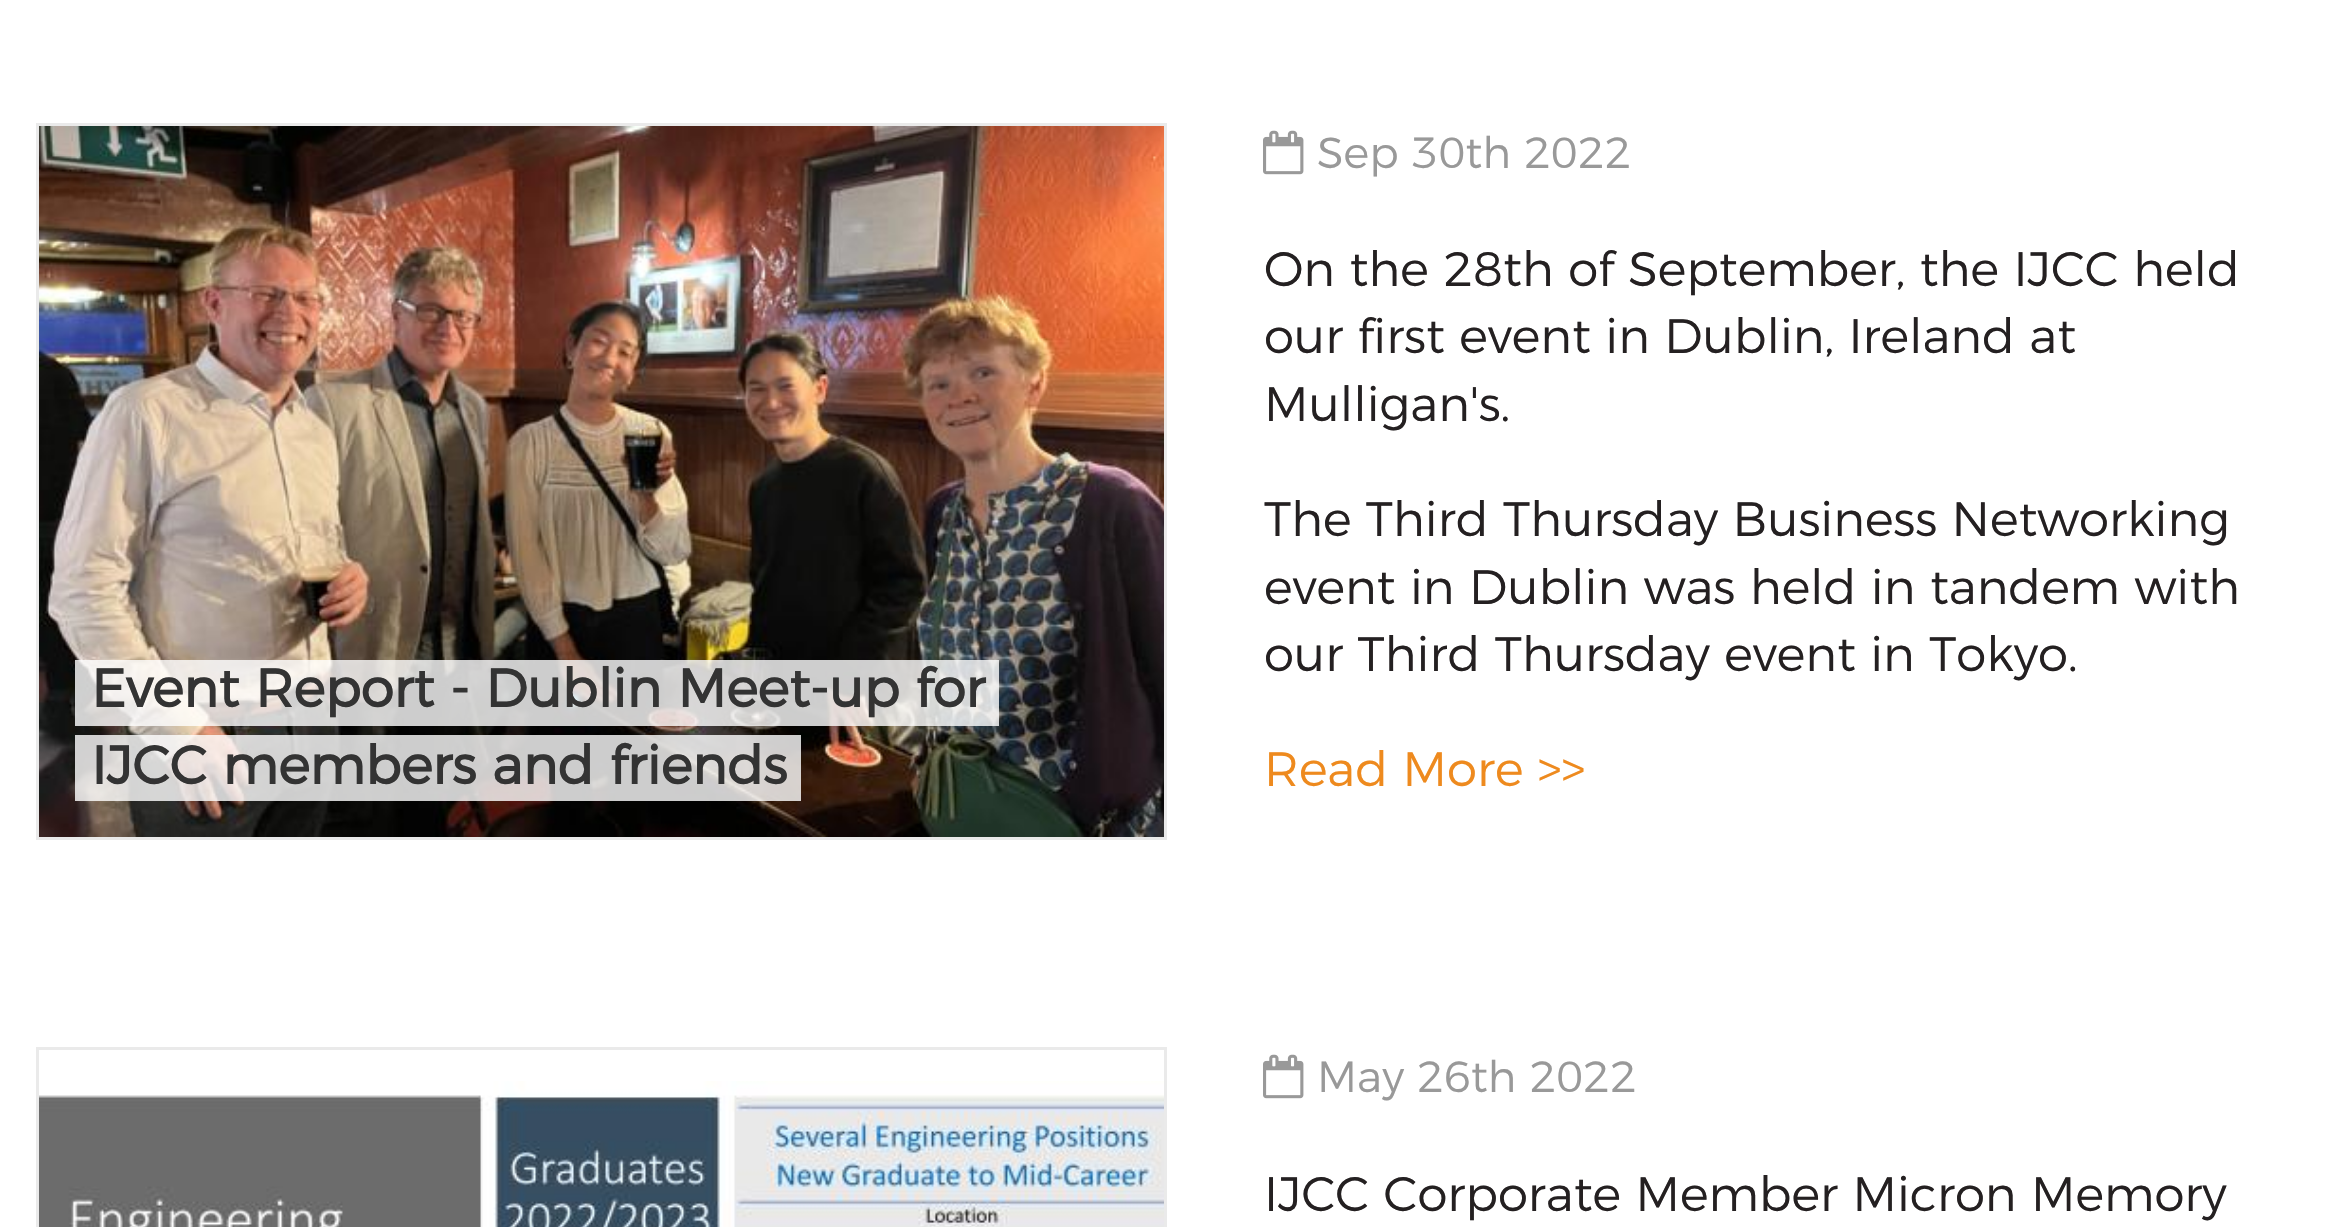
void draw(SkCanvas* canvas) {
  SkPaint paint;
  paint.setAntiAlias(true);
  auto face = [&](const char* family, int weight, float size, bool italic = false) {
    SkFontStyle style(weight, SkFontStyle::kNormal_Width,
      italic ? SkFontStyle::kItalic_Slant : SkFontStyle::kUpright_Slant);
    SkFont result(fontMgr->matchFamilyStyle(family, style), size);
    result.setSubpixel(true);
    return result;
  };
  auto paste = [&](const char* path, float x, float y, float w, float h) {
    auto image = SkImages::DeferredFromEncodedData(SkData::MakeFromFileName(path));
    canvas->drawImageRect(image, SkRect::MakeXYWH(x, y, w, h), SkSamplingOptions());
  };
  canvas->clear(0xffffffff);
  paste("img/1.png", 1263, 130, 41, 45);
  paint.setStroke(true);
  paint.setStrokeWidth(3);
  paint.setColor(0xffeaeaea);
  canvas->drawRect(SkRect::MakeXYWH(37.5f, 124.5f, 1128, 714), paint);
  paste("img/2.png", 39, 126, 1125, 711);
  paint.setStroke(false);
  {
    const struct { float x, y, w, h; SkColor color; } items[] = {
      {75, 660, 15, 66, 0xccffffff},
      {984, 660, 15, 66, 0xccffffff},
      {90, 660, 894, 66, 0xccffffff},
      {75, 735, 15, 66, 0xccffffff},
      {786, 735, 15, 66, 0xccffffff},
      {90, 735, 696, 66, 0xccffffff},
    };
    for (auto [x, y, w, h, color] : items) {
      paint.setColor(color);
      canvas->drawRect(SkRect::MakeXYWH(x, y, w, h), paint);
    }
  }
  paint.setStroke(true);
  paint.setColor(0xffeaeaea);
  canvas->drawRect(SkRect::MakeXYWH(37.5f, 1048.5f, 1128, 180), paint);
  paste("img/3.png", 39, 1081, 1125, 146);
  paste("img/1.png", 1263, 1054, 41, 45);
  auto f0 = face("Montserrat", 300, 43.5f);
  paint.setStroke(false);
  paint.setColor(0xff999999);
  canvas->drawString("Sep 30th 2022", 1317, 168, f0, paint);
  auto f1 = face("Montserrat", 300, 48.35f);
  paint.setColor(0xff242021);
  {
    const struct { const char* s; float x, y; } items[] = {
      {"On the 28th of September, the IJCC held", 1264, 286},
      {"our first event in Dublin, Ireland at", 1264, 353},
      {"Mulligan's.", 1264, 421},
      {"The Third Thursday Business Networking", 1264, 536},
      {"event in Dublin was held in tandem with", 1264, 604},
      {"our Third Thursday event in Tokyo.", 1264, 671},
    };
    for (auto [s, x, y] : items) {
      canvas->drawString(s, x, y, f1, paint);
    }
  }
  auto f2 = face("Montserrat", 700, 53.2f);
  paint.setColor(0xff333333);
  canvas->drawString("Event Report - Dublin Meet-up for", 91, 707, f2, paint);
  canvas->drawString("IJCC members and friends", 91, 784, f2, paint);
  paint.setColor(0xffee8a1e);
  canvas->drawString("Read More >>", 1264, 786, f1, paint);
  paint.setColor(0xff999999);
  canvas->drawString("May 26th 2022", 1317, 1092, f0, paint);
  paint.setColor(0xff242021);
  canvas->drawString("IJCC Corporate Member Micron Memory", 1264, 1211, f1, paint);
}
